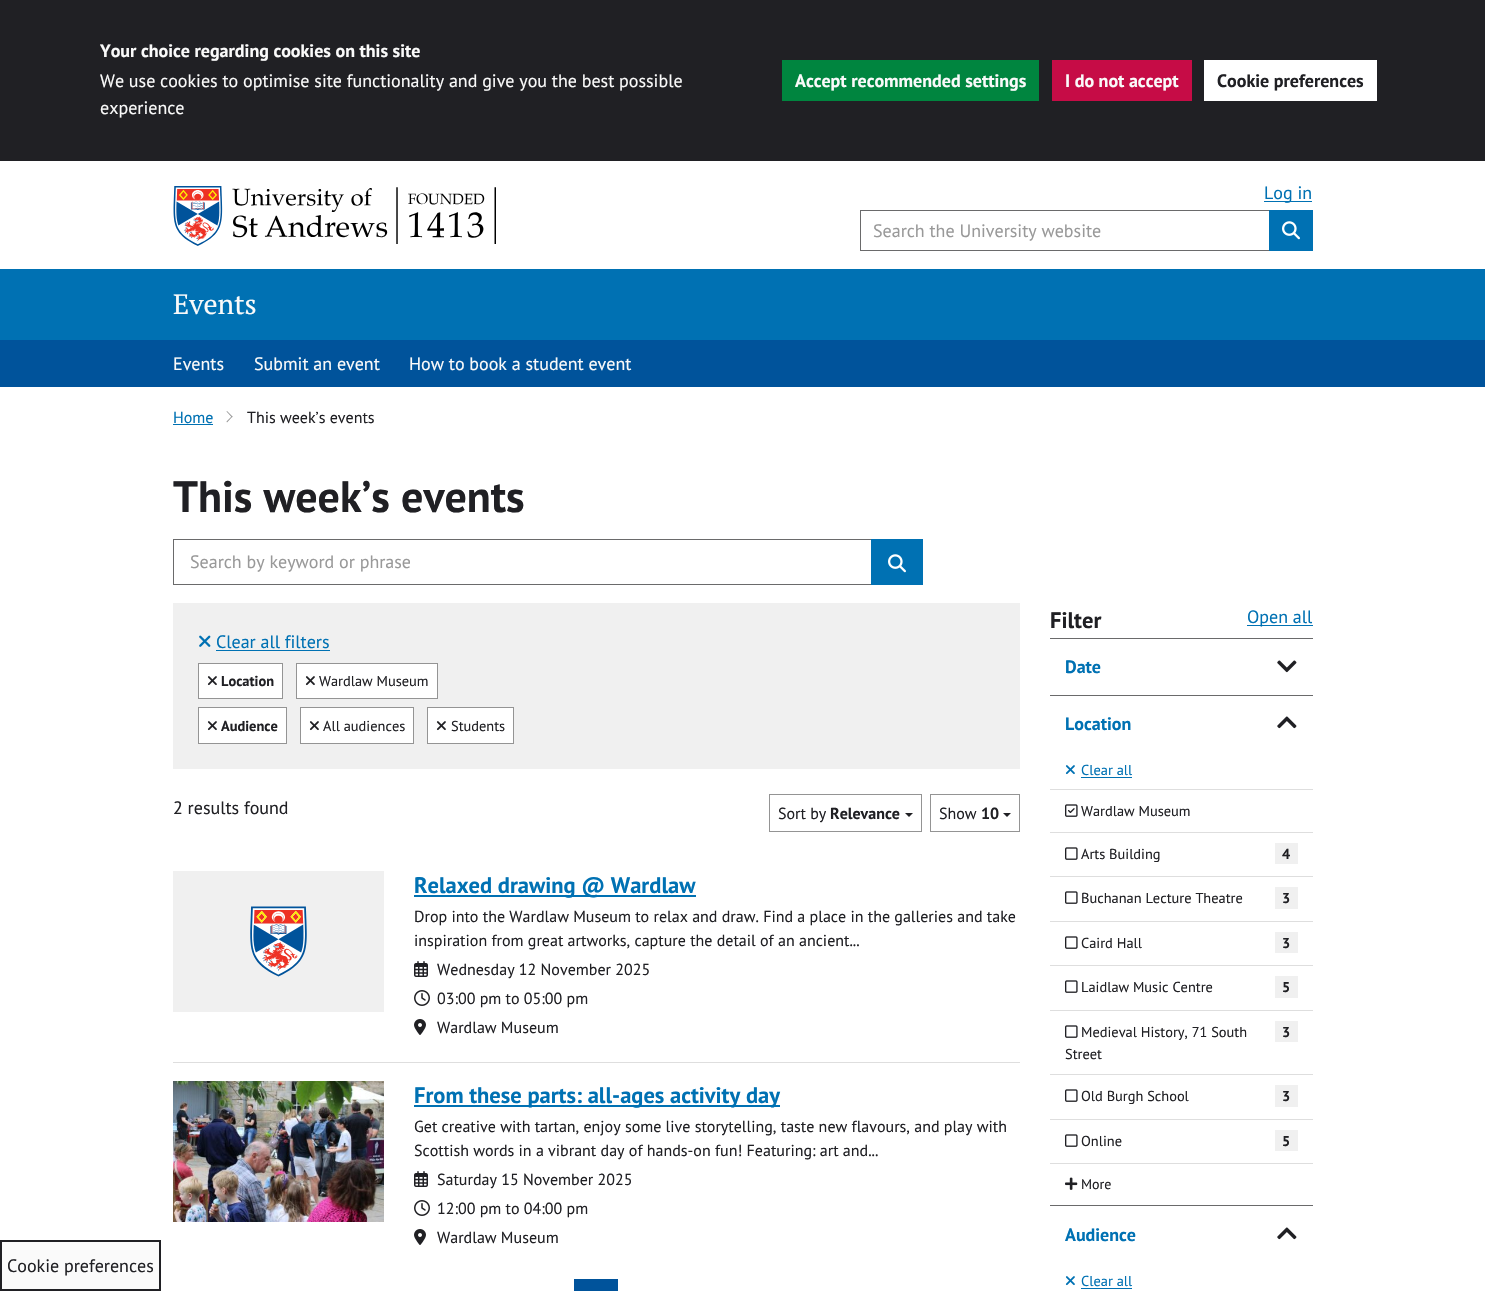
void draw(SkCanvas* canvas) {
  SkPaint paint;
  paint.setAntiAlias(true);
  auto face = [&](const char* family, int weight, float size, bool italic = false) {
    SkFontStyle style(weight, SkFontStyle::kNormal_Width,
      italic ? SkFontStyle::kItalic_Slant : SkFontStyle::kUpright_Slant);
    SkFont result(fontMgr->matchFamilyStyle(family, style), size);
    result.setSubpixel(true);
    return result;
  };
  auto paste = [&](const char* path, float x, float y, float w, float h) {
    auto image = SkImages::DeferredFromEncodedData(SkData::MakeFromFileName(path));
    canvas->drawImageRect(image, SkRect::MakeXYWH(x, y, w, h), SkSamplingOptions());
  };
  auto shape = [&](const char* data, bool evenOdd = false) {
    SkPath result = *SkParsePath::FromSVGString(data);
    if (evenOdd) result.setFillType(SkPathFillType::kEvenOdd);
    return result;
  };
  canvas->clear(0xffffffff);
  {
    const struct { float x, y, w, h; SkColor color; } items[] = {
      {0, 0, 1485, 161, 0xff202024},
      {782, 60, 257, 41, 0xff00853f},
      {1052, 60, 140, 41, 0xffc60c46},
      {1204, 60, 173, 41, 0xffffffff},
    };
    for (auto [x, y, w, h, color] : items) {
      paint.setColor(color);
      canvas->drawRect(SkRect::MakeXYWH(x, y, w, h), paint);
    }
  }
  paste("img/1.png", 173, 186, 323, 60);
  paint.setColor(0xff0071b3);
  canvas->drawRect(SkRect::MakeXYWH(1264, 201, 48, 1), paint);
  paint.setStroke(true);
  paint.setStrokeWidth(1);
  paint.setColor(0xff6a6a6b);
  canvas->drawRect(SkRect::MakeXYWH(860.5f, 210.5f, 409, 40), paint);
  paint.setStroke(false);
  paint.setColor(0xff0071b3);
  canvas->drawRect(SkRect::MakeXYWH(1269, 210, 44, 41), paint);
  paste("img/2.png", 1282, 221, 18, 19);
  canvas->drawRect(SkRect::MakeXYWH(0, 269, 1485, 71), paint);
  paint.setColor(0xff00539b);
  canvas->drawRect(SkRect::MakeXYWH(0, 340, 1485, 47), paint);
  paint.setColor(0xfffafafa);
  canvas->drawRect(SkRect::MakeXYWH(1, 1241, 159, 49), paint);
  paint.setStroke(true);
  paint.setStrokeWidth(2);
  paint.setColor(0xff202024);
  canvas->drawRect(SkRect::MakeXYWH(1, 1241, 159, 49), paint);
  paint.setStroke(false);
  paint.setColor(0xff0071b3);
  canvas->drawRect(SkRect::MakeXYWH(173, 424, 40, 1), paint);
  paint.setColor(0xff949494);
  canvas->drawPath(shape("M227 411L232.5 416.5L232 417.5L226.5 411.5Z"), paint);
  canvas->drawPath(shape("M232 416L232.5 416.5L227 422.5L226.5 421.5Z"), paint);
  paint.setStroke(true);
  paint.setStrokeWidth(1);
  paint.setColor(0xff6a6a6b);
  canvas->drawRect(SkRect::MakeXYWH(173.5f, 539.5f, 698, 45), paint);
  paint.setStroke(false);
  paint.setColor(0xff0071b3);
  canvas->drawRect(SkRect::MakeXYWH(871, 539, 52, 46), paint);
  paste("img/2.png", 888, 554, 18, 19);
  paint.setColor(0xfff0f0f0);
  canvas->drawRect(SkRect::MakeXYWH(173, 603, 847, 166), paint);
  paste("img/3.png", 199, 635, 12, 12);
  paint.setColor(0xff0071b3);
  canvas->drawRect(SkRect::MakeXYWH(216, 650, 114, 1), paint);
  paint.setColor(0xffffffff);
  canvas->drawRect(SkRect::MakeXYWH(198.5f, 663.5f, 84, 35), paint);
  paint.setStroke(true);
  paint.setColor(0xff949494);
  canvas->drawRect(SkRect::MakeXYWH(198.5f, 663.5f, 84, 35), paint);
  paste("img/4.png", 207, 676, 10, 10);
  paint.setStroke(false);
  paint.setColor(0xffffffff);
  canvas->drawRect(SkRect::MakeXYWH(296.5f, 663.5f, 141, 35), paint);
  paint.setStroke(true);
  paint.setColor(0xff949494);
  canvas->drawRect(SkRect::MakeXYWH(296.5f, 663.5f, 141, 35), paint);
  paste("img/4.png", 305, 676, 10, 10);
  paint.setStroke(false);
  paint.setColor(0xffffffff);
  canvas->drawRect(SkRect::MakeXYWH(198.5f, 707.5f, 88, 36), paint);
  paint.setStroke(true);
  paint.setColor(0xff949494);
  canvas->drawRect(SkRect::MakeXYWH(198.5f, 707.5f, 88, 36), paint);
  paste("img/4.png", 207, 721, 10, 10);
  paint.setStroke(false);
  paint.setColor(0xffffffff);
  canvas->drawRect(SkRect::MakeXYWH(300.5f, 707.5f, 113, 36), paint);
  paint.setStroke(true);
  paint.setColor(0xff949494);
  canvas->drawRect(SkRect::MakeXYWH(300.5f, 707.5f, 113, 36), paint);
  paste("img/4.png", 309, 721, 10, 10);
  paint.setStroke(false);
  paint.setColor(0xffffffff);
  canvas->drawRect(SkRect::MakeXYWH(427.5f, 707.5f, 86, 36), paint);
  paint.setStroke(true);
  paint.setColor(0xff949494);
  canvas->drawRect(SkRect::MakeXYWH(427.5f, 707.5f, 86, 36), paint);
  paste("img/4.png", 436, 721, 10, 10);
  canvas->drawRect(SkRect::MakeXYWH(769.5f, 794.5f, 152, 37), paint);
  paint.setStroke(false);
  paint.setColor(0xff202024);
  canvas->drawPath(shape("M905 813H913L909 817Z"), paint);
  paint.setStroke(true);
  paint.setColor(0xff949494);
  canvas->drawRect(SkRect::MakeXYWH(930.5f, 794.5f, 89, 37), paint);
  paint.setStroke(false);
  paint.setColor(0xff202024);
  canvas->drawPath(shape("M1003 813H1011L1007 817Z"), paint);
  paste("img/5.png", 173, 871, 211, 141);
  paint.setColor(0xff0071b3);
  canvas->drawRect(SkRect::MakeXYWH(414, 895, 282, 2), paint);
  paste("img/6.png", 414, 961, 14, 16);
  paste("img/7.png", 414, 990, 16, 16);
  paste("img/8.png", 414, 1019, 12, 16);
  paint.setColor(0xffdedede);
  canvas->drawRect(SkRect::MakeXYWH(173, 1062, 847, 1), paint);
  paste("img/9.png", 173, 1081, 211, 141);
  paint.setColor(0xff0071b3);
  canvas->drawRect(SkRect::MakeXYWH(414, 1105, 366, 2), paint);
  paste("img/6.png", 414, 1171, 14, 16);
  paste("img/7.png", 414, 1200, 16, 16);
  paste("img/8.png", 414, 1229, 12, 16);
  {
    const struct { float x, y, w, h; SkColor color; } items[] = {
      {574, 1279, 44, 12, 0xff00539b},
      {1247, 625, 66, 1, 0xff0071b3},
      {1050, 638, 263, 1, 0xff6a6a6b},
      {1050, 695, 263, 1, 0xff6a6a6b},
    };
    for (auto [x, y, w, h, color] : items) {
      paint.setColor(color);
      canvas->drawRect(SkRect::MakeXYWH(x, y, w, h), paint);
    }
  }
  paste("img/10.png", 1277, 660, 20, 13);
  canvas->drawRect(SkRect::MakeXYWH(1050, 1205, 263, 1), paint);
  paste("img/11.png", 1277, 716, 20, 13);
  paste("img/12.png", 1065, 765, 10, 10);
  paint.setColor(0xff0071b3);
  canvas->drawRect(SkRect::MakeXYWH(1081, 777, 51, 1), paint);
  paint.setColor(0xffdedede);
  canvas->drawRect(SkRect::MakeXYWH(1050, 789, 263, 1), paint);
  paste("img/13.png", 1065, 804, 13, 13);
  canvas->drawRect(SkRect::MakeXYWH(1050, 832, 263, 1), paint);
  paste("img/14.png", 1065, 847, 13, 13);
  paint.setColor(0xfff0f0f0);
  canvas->drawRect(SkRect::MakeXYWH(1275, 843, 23, 21), paint);
  paint.setColor(0xffdedede);
  canvas->drawRect(SkRect::MakeXYWH(1050, 876, 263, 1), paint);
  paste("img/14.png", 1065, 891, 13, 13);
  paint.setColor(0xfff0f0f0);
  canvas->drawRect(SkRect::MakeXYWH(1275, 887, 23, 22), paint);
  paint.setColor(0xffdedede);
  canvas->drawRect(SkRect::MakeXYWH(1050, 921, 263, 1), paint);
  paste("img/14.png", 1065, 936, 13, 13);
  paint.setColor(0xfff0f0f0);
  canvas->drawRect(SkRect::MakeXYWH(1275, 932, 23, 21), paint);
  paint.setColor(0xffdedede);
  canvas->drawRect(SkRect::MakeXYWH(1050, 965, 263, 1), paint);
  paste("img/14.png", 1065, 980, 13, 13);
  paint.setColor(0xfff0f0f0);
  canvas->drawRect(SkRect::MakeXYWH(1275, 976, 23, 22), paint);
  paint.setColor(0xffdedede);
  canvas->drawRect(SkRect::MakeXYWH(1050, 1010, 263, 1), paint);
  paste("img/14.png", 1065, 1025, 13, 13);
  paint.setColor(0xfff0f0f0);
  canvas->drawRect(SkRect::MakeXYWH(1275, 1021, 23, 21), paint);
  paint.setColor(0xffdedede);
  canvas->drawRect(SkRect::MakeXYWH(1050, 1074, 263, 1), paint);
  paste("img/14.png", 1065, 1089, 13, 13);
  paint.setColor(0xfff0f0f0);
  canvas->drawRect(SkRect::MakeXYWH(1275, 1085, 23, 22), paint);
  paint.setColor(0xffdedede);
  canvas->drawRect(SkRect::MakeXYWH(1050, 1119, 263, 1), paint);
  paste("img/14.png", 1065, 1134, 13, 13);
  paint.setColor(0xfff0f0f0);
  canvas->drawRect(SkRect::MakeXYWH(1275, 1130, 23, 21), paint);
  paint.setColor(0xffdedede);
  canvas->drawRect(SkRect::MakeXYWH(1050, 1163, 263, 1), paint);
  paste("img/15.png", 1065, 1177, 13, 13);
  paste("img/11.png", 1277, 1227, 20, 13);
  paste("img/12.png", 1065, 1276, 10, 10);
  paint.setColor(0xff0071b3);
  canvas->drawRect(SkRect::MakeXYWH(1081, 1288, 51, 1), paint);
  auto f0 = face("PT Sans", 700, 18);
  paint.setColor(0xfffafafa);
  canvas->drawString("Your choice regarding cookies on this site", 100, 57, f0, paint);
  auto f1 = face("PT Sans", 400, 18);
  canvas->drawString("We use cookies to optimise site functionality and give you the best possible", 100, 87, f1, paint);
  canvas->drawString("experience", 100, 114, f1, paint);
  canvas->drawString("Accept recommended settings", 795, 87, f0, paint);
  canvas->drawString("I do not accept", 1065, 87, f0, paint);
  paint.setColor(0xff202024);
  canvas->drawString("Cookie preferences", 1217, 87, f0, paint);
  paint.setColor(0xff0071b3);
  canvas->drawString("Log in", 1264, 199, f1, paint);
  paint.setColor(0xff999999);
  canvas->drawString("Search the University website", 873, 237, f1, paint);
  auto f2 = face("PT Serif", 400, 28);
  paint.setColor(0xfffafafa);
  canvas->drawString("Events", 173, 314, f2, paint);
  {
    const struct { const char* s; float x, y; } items[] = {
      {"Events", 173, 370},
      {"Submit an event", 254, 370},
      {"How to book a student event", 409, 370},
    };
    for (auto [s, x, y] : items) {
      canvas->drawString(s, x, y, f1, paint);
    }
  }
  paint.setColor(0xff202024);
  canvas->drawString("Cookie preferences", 7, 1272, f1, paint);
  auto f3 = face("PT Sans", 400, 16);
  paint.setColor(0xff0071b3);
  canvas->drawString("Home", 173, 423, f3, paint);
  paint.setColor(0xff202024);
  canvas->drawString("This week’s events", 247, 423, f3, paint);
  auto f4 = face("PT Sans", 700, 44);
  canvas->drawString("This week’s events", 173, 512, f4, paint);
  paint.setColor(0xff999999);
  canvas->drawString("Search by keyword or phrase", 190, 568, f1, paint);
  paint.setColor(0xff0071b3);
  canvas->drawString("Clear all filters", 216, 648, f1, paint);
  auto f5 = face("PT Sans", 700, 14.4f);
  paint.setColor(0xff202024);
  canvas->drawString("Location", 221, 686, f5, paint);
  auto f6 = face("PT Sans", 400, 14.4f);
  canvas->drawString("Wardlaw Museum", 319, 686, f6, paint);
  canvas->drawString("Audience", 221, 731, f5, paint);
  canvas->drawString("All audiences", 323, 731, f6, paint);
  canvas->drawString("Students", 451, 731, f6, paint);
  canvas->drawString("2 results found", 173, 814, f1, paint);
  canvas->drawString("Sort by", 778, 819, f3, paint);
  auto f7 = face("PT Sans", 700, 16);
  canvas->drawString("Relevance", 830, 819, f7, paint);
  canvas->drawString("Show", 939, 819, f3, paint);
  canvas->drawString("10", 981, 819, f7, paint);
  auto f8 = face("PT Sans", 700, 22.5f);
  paint.setColor(0xff0071b3);
  canvas->drawString("Relaxed drawing @ Wardlaw", 414, 893, f8, paint);
  paint.setColor(0xff202024);
  {
    const struct { const char* s; float x, y; } items[] = {
      {"Drop into the Wardlaw Museum to relax and draw. Find a place in the galleries and take", 414, 922},
      {"inspiration from great artworks, capture the detail of an ancient...", 414, 946},
      {"Wednesday 12 November 2025", 437, 975},
      {"03:00 pm to 05:00 pm", 437, 1004},
      {"Wardlaw Museum", 437, 1033},
    };
    for (auto [s, x, y] : items) {
      canvas->drawString(s, x, y, f3, paint);
    }
  }
  paint.setColor(0xff0071b3);
  canvas->drawString("From these parts: all-ages activity day", 414, 1103, f8, paint);
  paint.setColor(0xff202024);
  {
    const struct { const char* s; float x, y; } items[] = {
      {"Get creative with tartan, enjoy some live storytelling, taste new flavours, and play with", 414, 1132},
      {"Scottish words in a vibrant day of hands-on fun! Featuring: art and...", 414, 1156},
      {"Saturday 15 November 2025", 437, 1185},
      {"12:00 pm to 04:00 pm", 437, 1214},
      {"Wardlaw Museum", 437, 1243},
    };
    for (auto [s, x, y] : items) {
      canvas->drawString(s, x, y, f3, paint);
    }
  }
  canvas->drawString("Filter", 1050, 628, f8, paint);
  paint.setColor(0xff0071b3);
  canvas->drawString("Open all", 1247, 623, f1, paint);
  canvas->drawString("Date", 1065, 673, f0, paint);
  canvas->drawString("Location", 1065, 730, f0, paint);
  canvas->drawString("Clear all", 1081, 775, f6, paint);
  paint.setColor(0xff202024);
  canvas->drawString("Wardlaw Museum", 1081, 816, f6, paint);
  canvas->drawString("Arts Building", 1081, 859, f6, paint);
  canvas->drawString("4", 1282, 859, f5, paint);
  canvas->drawString("Buchanan Lecture Theatre", 1081, 903, f6, paint);
  canvas->drawString("3", 1282, 903, f5, paint);
  canvas->drawString("Caird Hall", 1081, 948, f6, paint);
  canvas->drawString("3", 1282, 948, f5, paint);
  canvas->drawString("Laidlaw Music Centre", 1081, 992, f6, paint);
  canvas->drawString("5", 1282, 992, f5, paint);
  canvas->drawString("Medieval History, 71 South", 1081, 1037, f6, paint);
  canvas->drawString("Street", 1065, 1059, f6, paint);
  canvas->drawString("3", 1282, 1037, f5, paint);
  canvas->drawString("Old Burgh School", 1081, 1101, f6, paint);
  canvas->drawString("3", 1282, 1101, f5, paint);
  canvas->drawString("Online", 1081, 1146, f6, paint);
  canvas->drawString("5", 1282, 1146, f5, paint);
  auto f9 = face("PT Sans", 400, 14);
  canvas->drawString("More", 1081, 1189, f9, paint);
  paint.setColor(0xff0071b3);
  canvas->drawString("Audience", 1065, 1241, f0, paint);
  canvas->drawString("Clear all", 1081, 1286, f6, paint);
}
